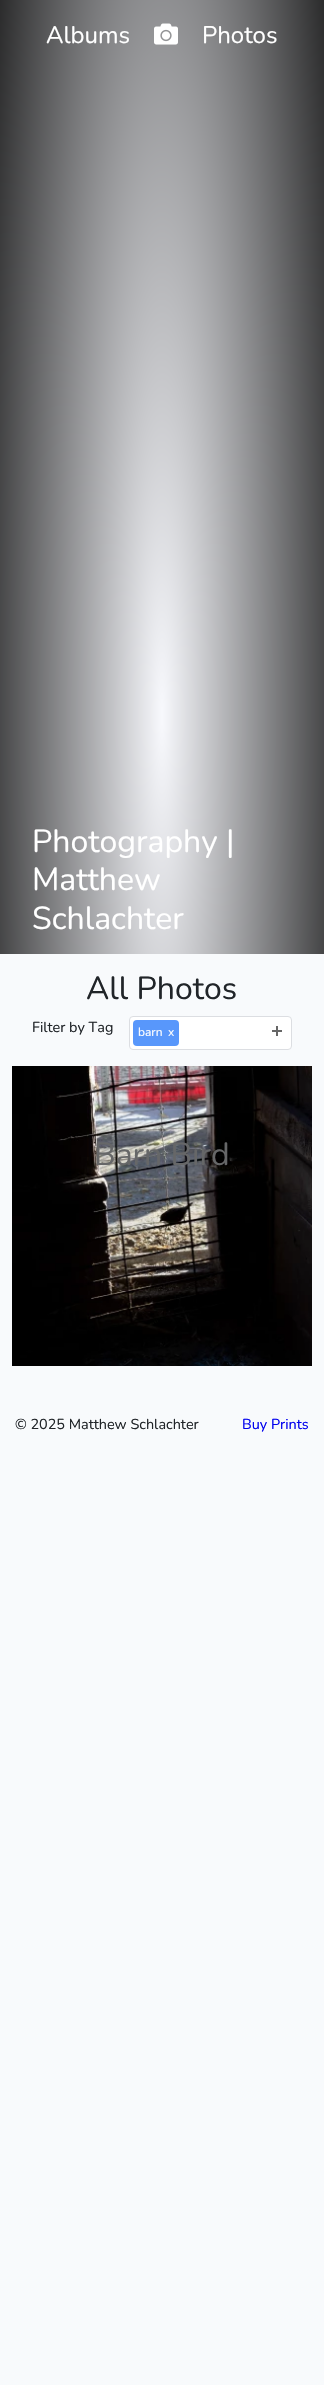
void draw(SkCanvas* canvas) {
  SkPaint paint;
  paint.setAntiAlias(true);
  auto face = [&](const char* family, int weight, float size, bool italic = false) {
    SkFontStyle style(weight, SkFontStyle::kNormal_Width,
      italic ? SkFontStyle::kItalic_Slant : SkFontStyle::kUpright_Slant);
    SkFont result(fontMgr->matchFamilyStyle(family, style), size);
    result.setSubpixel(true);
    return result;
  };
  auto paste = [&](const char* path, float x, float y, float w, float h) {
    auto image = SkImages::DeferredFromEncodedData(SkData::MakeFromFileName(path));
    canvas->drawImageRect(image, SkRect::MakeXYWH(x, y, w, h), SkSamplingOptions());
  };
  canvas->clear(0xfff8fafc);
  {
    const SkColor colors[] = {0xfff8f9fd, 0xff000000};
    const float stops[] = {0, 1};
    SkMatrix m = SkMatrix::Translate(162, 716).preScale(229, 1686);
    paint.setShader(SkGradientShader::MakeRadial({0, 0}, 1, colors, stops, 2, SkTileMode::kClamp, 0, &m));
    paint.setAlpha(255);
  }
  canvas->drawRect(SkRect::MakeXYWH(0, 0, 324, 954), paint);
  paste("img/1.png", 154, 23, 24, 22);
  paint.setShader(nullptr);
  paint.setColor(0xffffffff);
  canvas->drawRoundRect(SkRect::MakeXYWH(129.5f, 1016.5f, 162, 33), 3.5f, 3.5f, paint);
  paint.setStroke(true);
  paint.setStrokeWidth(1);
  paint.setColor(0xffdcdee2);
  canvas->drawRoundRect(SkRect::MakeXYWH(129.5f, 1016.5f, 162, 33), 3.5f, 3.5f, paint);
  paint.setStroke(false);
  paint.setColor(0xff5897fb);
  canvas->drawRoundRect(SkRect::MakeXYWH(133, 1020, 46, 26), 4, 4, paint);
  paint.setColor(0xff666666);
  canvas->drawRect(SkRect::MakeXYWH(276, 1026, 2, 10), paint);
  canvas->drawRect(SkRect::MakeXYWH(272, 1030, 10, 2), paint);
  paste("img/2.png", 12, 1066, 300, 300);
  auto f0 = face("Nunito", 200, 24);
  paint.setColor(0xffffffff);
  canvas->drawString("Albums", 46, 43, f0, paint);
  canvas->drawString("Photos", 202, 43, f0, paint);
  auto f1 = face("Nunito", 200, 32);
  {
    const struct { const char* s; float x, y; } items[] = {
      {"Photography |", 32, 852},
      {"Matthew", 32, 890},
      {"Schlachter", 32, 929},
    };
    for (auto [s, x, y] : items) {
      canvas->drawString(s, x, y, f1, paint);
    }
  }
  paint.setColor(0xff212529);
  canvas->drawString("All Photos", 86, 999, f1, paint);
  auto f2 = face("Nunito", 200, 14.4f);
  canvas->drawString("Filter by Tag", 32, 1032, f2, paint);
  auto f3 = face("Nunito", 200, 12);
  paint.setColor(0xffffffff);
  canvas->drawString("barn", 138, 1036, f3, paint);
  canvas->drawString("x", 168, 1036, f3, paint);
  paint.setColor(0xff666768);
  canvas->drawString("Barn Bird", 94, 1165, f1, paint);
  paint.setColor(0xff212529);
  canvas->drawString("© 2025 Matthew Schlachter", 15, 1429, f2, paint);
  paint.setColor(0xff0000ee);
  canvas->drawString("Buy Prints", 242, 1429, f2, paint);
}
